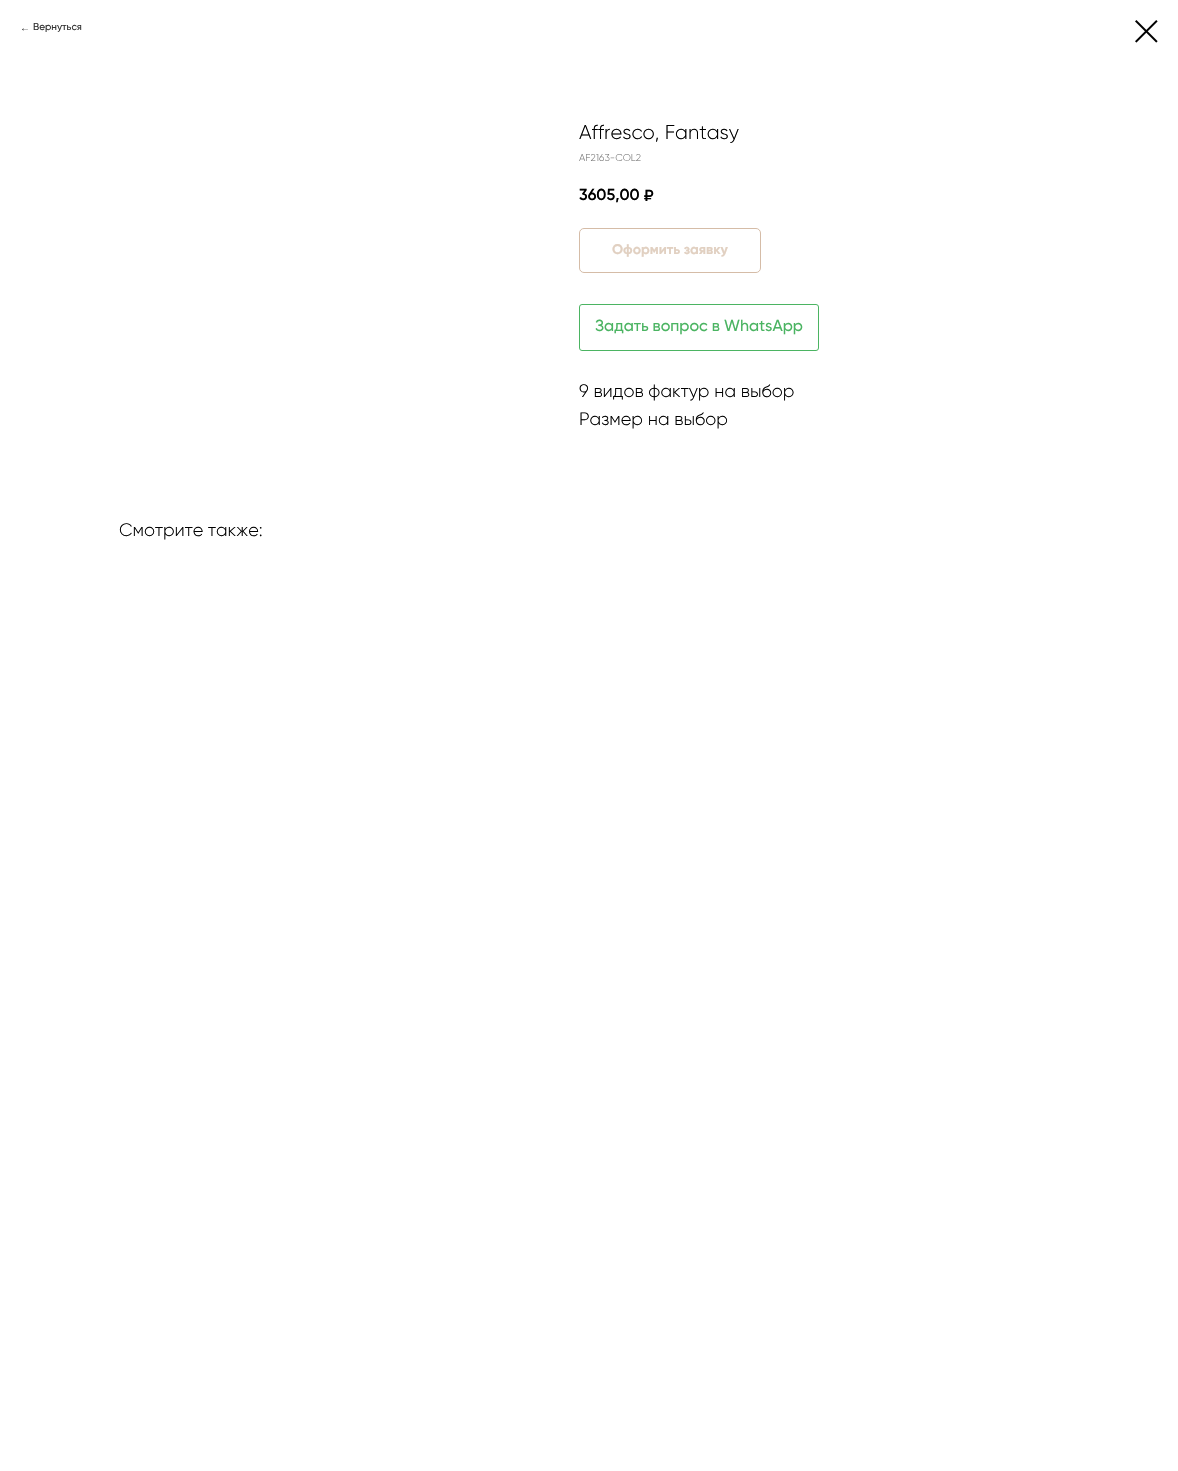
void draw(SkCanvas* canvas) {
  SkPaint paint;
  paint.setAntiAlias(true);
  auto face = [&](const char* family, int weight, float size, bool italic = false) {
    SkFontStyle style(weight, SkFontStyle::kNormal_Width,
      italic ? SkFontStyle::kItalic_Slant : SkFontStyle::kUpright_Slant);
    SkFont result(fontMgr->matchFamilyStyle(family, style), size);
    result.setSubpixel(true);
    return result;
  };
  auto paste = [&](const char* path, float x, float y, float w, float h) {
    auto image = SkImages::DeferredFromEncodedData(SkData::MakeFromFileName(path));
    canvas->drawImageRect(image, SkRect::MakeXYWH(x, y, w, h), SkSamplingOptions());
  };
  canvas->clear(0xffffffff);
  paste("img/1.png", 1135, 20, 23, 23);
  paint.setStroke(true);
  paint.setStrokeWidth(1);
  paint.setColor(0xffd5bca7);
  canvas->drawRoundRect(SkRect::MakeXYWH(579.5f, 228.5f, 181, 44), 4.5f, 4.5f, paint);
  paint.setColor(0xff4bb462);
  canvas->drawRoundRect(SkRect::MakeXYWH(579.5f, 304.5f, 239, 46), 2.5f, 2.5f, paint);
  auto f0 = face("Liberation Sans", 400, 10);
  paint.setStroke(false);
  paint.setColor(0xff333333);
  canvas->drawString("←", 20, 31, f0, paint);
  auto f1 = face("Gilroy", 500, 10);
  canvas->drawString("Вернуться", 33, 30, f1, paint);
  auto f2 = face("Gilroy", 300, 20);
  paint.setColor(0xff000000);
  canvas->drawString("Affresco, Fantasy", 579, 139, f2, paint);
  auto f3 = face("Gilroy", 300, 10);
  paint.setColor(0xff777777);
  canvas->drawString("AF2163-COL2", 579, 161, f3, paint);
  auto f4 = face("Gilroy", 600, 16);
  paint.setColor(0xff000000);
  canvas->drawString("3605,00", 579, 200, f4, paint);
  canvas->drawString("₽", 644, 201, f4, paint);
  auto f5 = face("Gilroy", 700, 14);
  paint.setColor(0xffe1d0c1);
  canvas->drawString("Оформить заявку", 612, 254, f5, paint);
  auto f6 = face("Gilroy", 500, 16);
  paint.setColor(0xff4bb462);
  canvas->drawString("Задать вопрос в WhatsApp", 595, 331, f6, paint);
  auto f7 = face("Gilroy", 300, 18);
  paint.setColor(0xff000000);
  {
    const struct { const char* s; float x, y; } items[] = {
      {"9 видов фактур на выбор", 579, 397},
      {"Размер на выбор", 579, 425},
      {"Смотрите также:", 119, 536},
    };
    for (auto [s, x, y] : items) {
      canvas->drawString(s, x, y, f7, paint);
    }
  }
}
